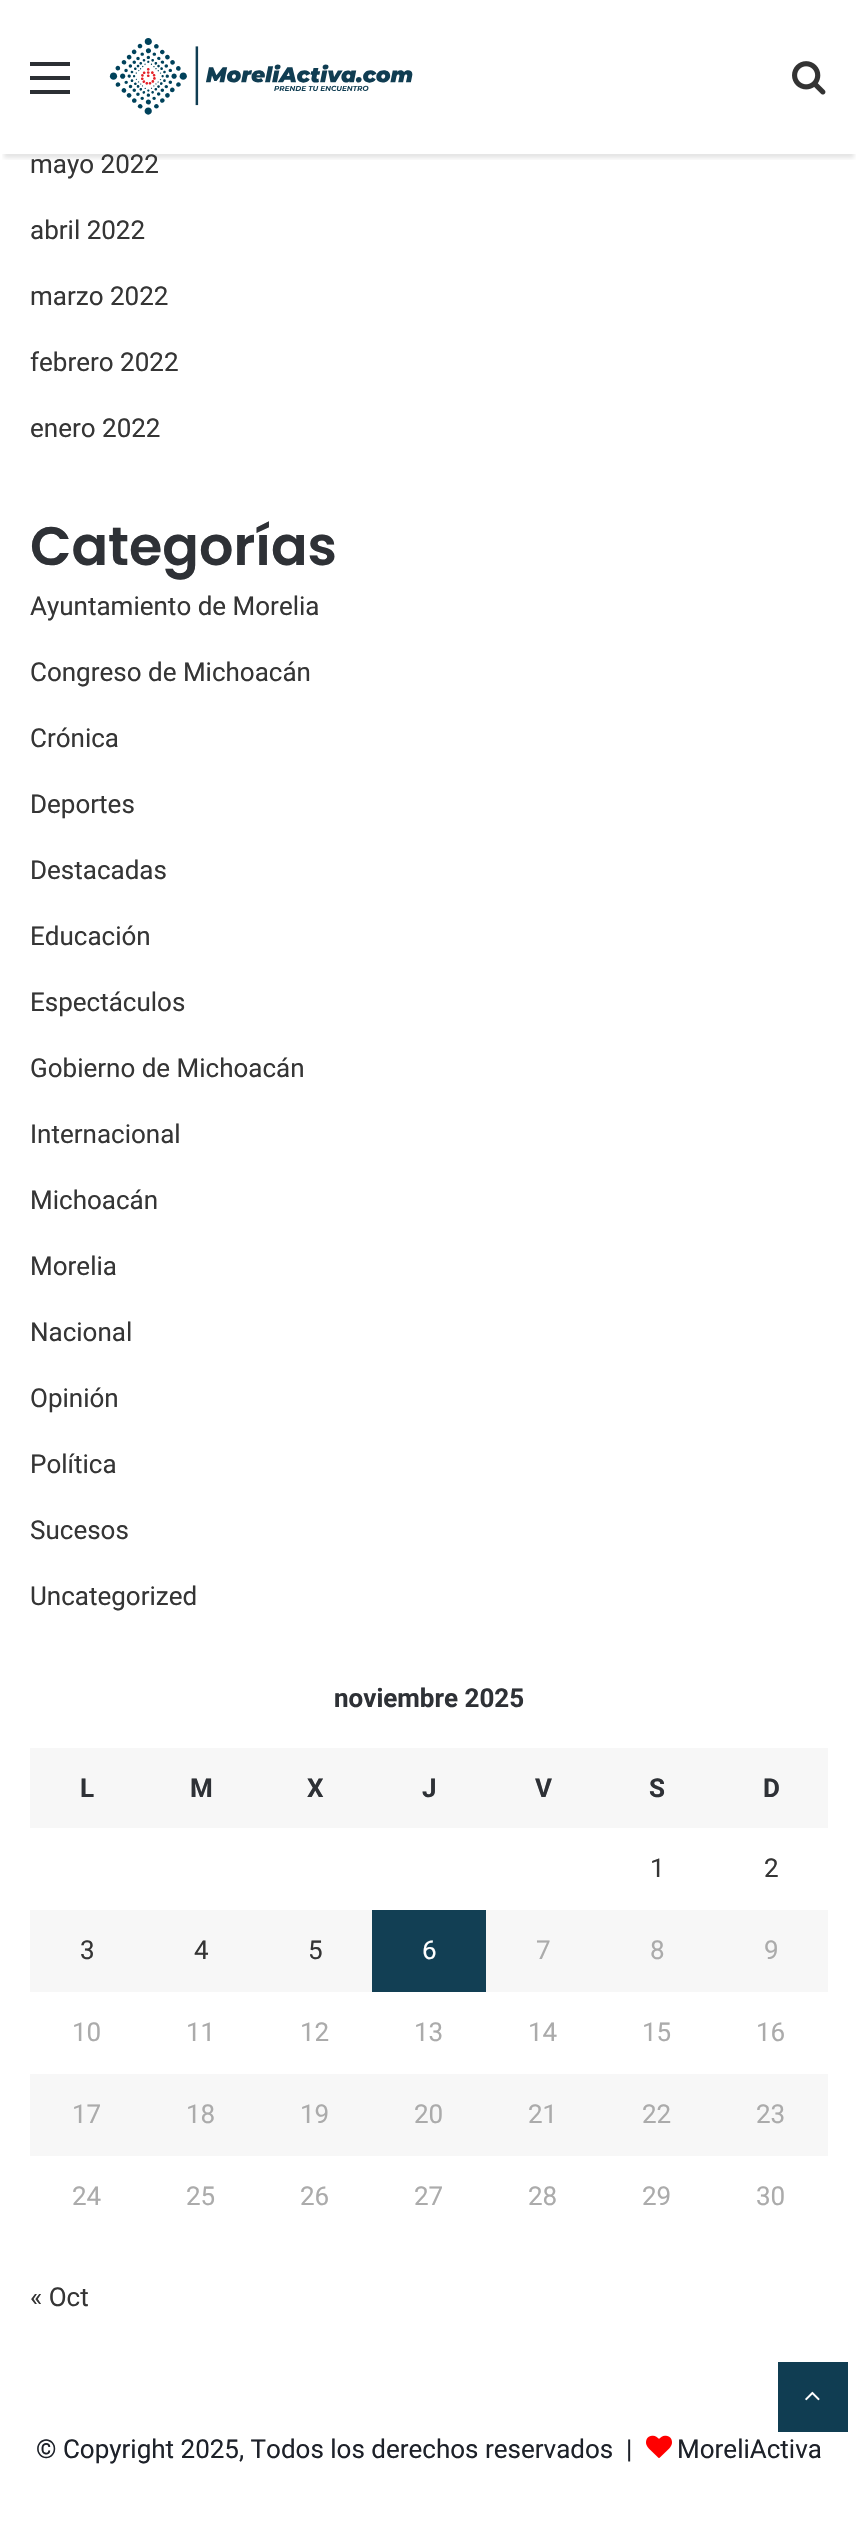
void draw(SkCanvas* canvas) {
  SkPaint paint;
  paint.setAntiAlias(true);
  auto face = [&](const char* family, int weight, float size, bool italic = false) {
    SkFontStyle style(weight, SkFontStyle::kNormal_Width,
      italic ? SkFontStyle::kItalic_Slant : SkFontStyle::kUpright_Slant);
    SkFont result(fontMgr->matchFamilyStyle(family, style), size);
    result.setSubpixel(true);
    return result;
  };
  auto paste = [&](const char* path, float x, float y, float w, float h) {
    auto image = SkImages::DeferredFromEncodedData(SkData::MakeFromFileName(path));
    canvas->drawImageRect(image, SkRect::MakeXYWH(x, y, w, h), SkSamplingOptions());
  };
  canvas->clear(0xffffffff);
  canvas->save();
  canvas->clipRect(SkRect::MakeXYWH(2, 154, 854, 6));
  paint.setColor(0x1a000000);
  paint.setMaskFilter(SkMaskFilter::MakeBlur(kNormal_SkBlurStyle, 2));
  canvas->drawRect(SkRect::MakeXYWH(4, 12, 850, 146), paint);
  paint.setMaskFilter(nullptr);
  canvas->restore();
  {
    const struct { float x, y, w, h; SkColor color; } items[] = {
      {30, 76, 40, 4, 0xff2c2f34},
      {30, 62, 40, 4, 0xff2c2f34},
      {30, 90, 40, 4, 0xff2c2f34},
    };
    for (auto [x, y, w, h, color] : items) {
      paint.setColor(color);
      canvas->drawRect(SkRect::MakeXYWH(x, y, w, h), paint);
    }
  }
  paste("img/1.png", 109, 38, 304, 77);
  paste("img/2.png", 792, 61, 34, 34);
  {
    const struct { float x, y, w, h; SkColor color; } items[] = {
      {30, 1748, 798, 80, 0xfff7f7f7},
      {30, 1910, 798, 82, 0xfff7f7f7},
      {372, 1910, 114, 82, 0xff123f54},
      {30, 2074, 798, 82, 0xfff7f7f7},
      {778, 2362, 70, 70, 0xff103d52},
    };
    for (auto [x, y, w, h, color] : items) {
      paint.setColor(color);
      canvas->drawRect(SkRect::MakeXYWH(x, y, w, h), paint);
    }
  }
  paste("img/3.png", 805, 2391, 15, 10);
  paste("img/4.png", 646, 2435, 26, 23);
  auto f0 = face("Roboto", 400, 26);
  paint.setColor(0xff353535);
  {
    const struct { const char* s; float x, y; } items[] = {
      {"mayo 2022", 30, 173},
      {"abril 2022", 30, 239},
      {"marzo 2022", 30, 305},
      {"febrero 2022", 30, 371},
      {"enero 2022", 30, 437},
    };
    for (auto [s, x, y] : items) {
      canvas->drawString(s, x, y, f0, paint);
    }
  }
  auto f1 = face("Poppins", 600, 54);
  paint.setColor(0xff2e3136);
  canvas->drawString("Categorías", 30, 565, f1, paint);
  paint.setColor(0xff353535);
  {
    const struct { const char* s; float x, y; } items[] = {
      {"Ayuntamiento de Morelia", 30, 615},
      {"Congreso de Michoacán", 30, 681},
      {"Crónica", 30, 747},
      {"Deportes", 30, 813},
      {"Destacadas", 30, 879},
      {"Educación", 30, 945},
      {"Espectáculos", 30, 1011},
      {"Gobierno de Michoacán", 30, 1077},
      {"Internacional", 30, 1143},
      {"Michoacán", 30, 1209},
      {"Morelia", 30, 1275},
      {"Nacional", 30, 1341},
      {"Opinión", 30, 1407},
      {"Política", 30, 1473},
      {"Sucesos", 30, 1539},
      {"Uncategorized", 30, 1605},
    };
    for (auto [s, x, y] : items) {
      canvas->drawString(s, x, y, f0, paint);
    }
  }
  auto f2 = face("Roboto", 700, 26);
  paint.setColor(0xff2e3136);
  {
    const struct { const char* s; float x, y; } items[] = {
      {"noviembre 2025", 334, 1707},
      {"L", 80, 1797},
      {"M", 190, 1797},
      {"X", 307, 1797},
      {"J", 422, 1797},
      {"V", 535, 1797},
      {"S", 649, 1797},
      {"D", 763, 1797},
    };
    for (auto [s, x, y] : items) {
      canvas->drawString(s, x, y, f2, paint);
    }
  }
  paint.setColor(0xff353535);
  {
    const struct { const char* s; float x, y; } items[] = {
      {"1", 650, 1877},
      {"2", 764, 1877},
      {"3", 80, 1959},
      {"4", 194, 1959},
      {"5", 308, 1959},
    };
    for (auto [s, x, y] : items) {
      canvas->drawString(s, x, y, f0, paint);
    }
  }
  paint.setColor(0xffffffff);
  canvas->drawString("6", 422, 1959, f0, paint);
  paint.setColor(0xffababab);
  {
    const struct { const char* s; float x, y; } items[] = {
      {"7", 536, 1959},
      {"8", 650, 1959},
      {"9", 764, 1959},
      {"10", 72, 2041},
      {"11", 186, 2041},
      {"12", 300, 2041},
      {"13", 414, 2041},
      {"14", 528, 2041},
      {"15", 642, 2041},
      {"16", 756, 2041},
      {"17", 72, 2123},
      {"18", 186, 2123},
      {"19", 300, 2123},
      {"20", 414, 2123},
      {"21", 528, 2123},
      {"22", 642, 2123},
      {"23", 756, 2123},
      {"24", 72, 2205},
      {"25", 186, 2205},
      {"26", 300, 2205},
      {"27", 414, 2205},
      {"28", 528, 2205},
      {"29", 642, 2205},
      {"30", 756, 2205},
    };
    for (auto [s, x, y] : items) {
      canvas->drawString(s, x, y, f0, paint);
    }
  }
  paint.setColor(0xff353535);
  canvas->drawString("« Oct", 30, 2306, f0, paint);
  paint.setColor(0xff1d2129);
  canvas->drawString("© Copyright 2025, Todos los derechos reservados  |", 36, 2458, f0, paint);
  canvas->drawString("MoreliActiva", 677, 2458, f0, paint);
}
